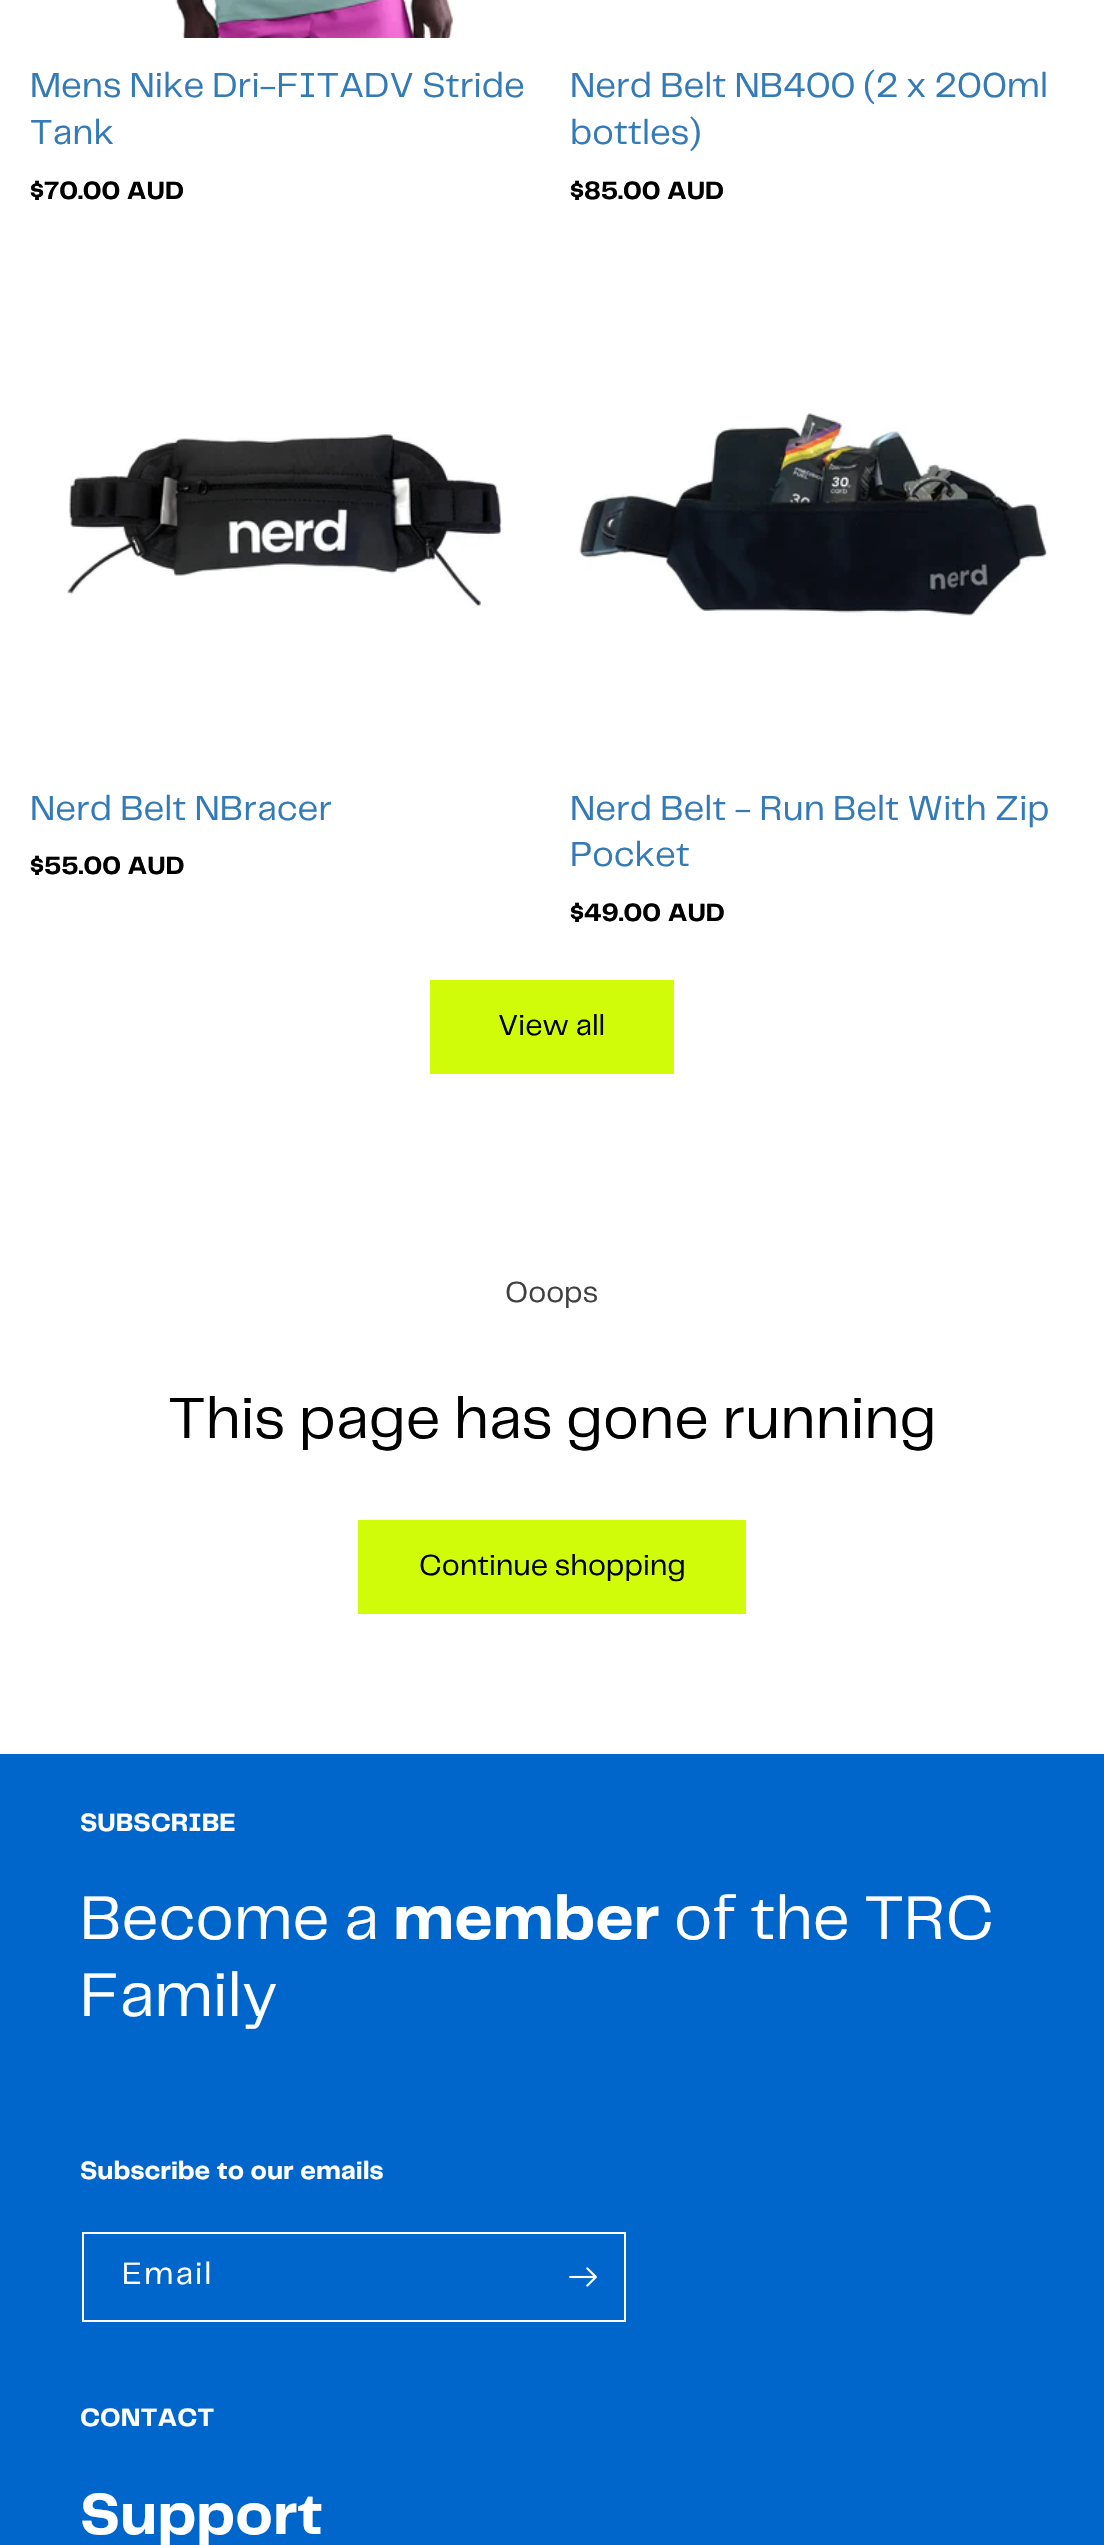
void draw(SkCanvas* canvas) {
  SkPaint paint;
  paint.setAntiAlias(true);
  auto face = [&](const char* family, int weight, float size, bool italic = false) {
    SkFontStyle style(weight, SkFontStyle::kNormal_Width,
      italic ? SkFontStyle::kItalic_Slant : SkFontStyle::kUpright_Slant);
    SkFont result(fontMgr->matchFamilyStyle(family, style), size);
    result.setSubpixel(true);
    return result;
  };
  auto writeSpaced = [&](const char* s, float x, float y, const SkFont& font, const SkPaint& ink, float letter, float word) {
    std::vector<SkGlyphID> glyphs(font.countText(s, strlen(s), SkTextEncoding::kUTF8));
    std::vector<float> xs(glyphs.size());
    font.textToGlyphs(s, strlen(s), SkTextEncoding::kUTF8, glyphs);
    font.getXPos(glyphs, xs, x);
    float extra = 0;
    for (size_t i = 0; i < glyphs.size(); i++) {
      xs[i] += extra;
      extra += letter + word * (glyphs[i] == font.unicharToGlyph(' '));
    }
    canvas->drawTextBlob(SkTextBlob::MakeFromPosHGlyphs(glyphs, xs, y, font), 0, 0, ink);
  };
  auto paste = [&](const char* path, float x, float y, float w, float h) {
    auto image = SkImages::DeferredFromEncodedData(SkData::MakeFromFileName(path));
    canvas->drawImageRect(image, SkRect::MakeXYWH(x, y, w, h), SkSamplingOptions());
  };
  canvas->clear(0xffffffff);
  paste("img/1.png", 175, 0, 279, 38);
  paste("img/2.png", 67, 432, 435, 174);
  paste("img/3.png", 579, 413, 468, 203);
  {
    const struct { float x, y, w, h; SkColor color; } items[] = {
      {430, 980, 244, 94, 0xffd0fc09},
      {358, 1520, 388, 94, 0xffd0fc09},
      {0, 1754, 1104, 791, 0xff0066cc},
    };
    for (auto [x, y, w, h, color] : items) {
      paint.setColor(color);
      canvas->drawRect(SkRect::MakeXYWH(x, y, w, h), paint);
    }
  }
  paint.setStroke(true);
  paint.setStrokeWidth(2);
  paint.setColor(0xffffffff);
  canvas->drawRect(SkRect::MakeXYWH(83, 2233, 542, 88), paint);
  paste("img/4.png", 569, 2267, 28, 20);
  auto f0 = face("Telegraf", 400, 36);
  paint.setStroke(false);
  paint.setColor(0xff337ab7);
  canvas->drawString("Mens Nike Dri-FITADV Stride", 30, 97, f0, paint);
  canvas->drawString("Tank", 30, 144, f0, paint);
  auto f1 = face("Telegraf", 700, 26);
  paint.setColor(0xff000000);
  canvas->drawString("$70.00 AUD", 30, 199, f1, paint);
  paint.setColor(0xff337ab7);
  canvas->drawString("Nerd Belt NB400 (2 x 200ml", 570, 97, f0, paint);
  canvas->drawString("bottles)", 570, 144, f0, paint);
  paint.setColor(0xff000000);
  canvas->drawString("$85.00 AUD", 570, 199, f1, paint);
  paint.setColor(0xff337ab7);
  canvas->drawString("Nerd Belt NBracer", 30, 820, f0, paint);
  paint.setColor(0xff000000);
  canvas->drawString("$55.00 AUD", 30, 874, f1, paint);
  paint.setColor(0xff337ab7);
  canvas->drawString("Nerd Belt - Run Belt With Zip", 570, 820, f0, paint);
  canvas->drawString("Pocket", 570, 866, f0, paint);
  paint.setColor(0xff000000);
  canvas->drawString("$49.00 AUD", 570, 921, f1, paint);
  auto f2 = face("Telegraf", 400, 30);
  canvas->drawString("View all", 498, 1035, f2, paint);
  paint.setColor(0xff404040);
  canvas->drawString("Ooops", 505, 1302, f2, paint);
  auto f3 = face("Telegraf", 400, 60);
  paint.setColor(0xff000000);
  canvas->drawString("This page has gone running", 168, 1438, f3, paint);
  canvas->drawString("Continue shopping", 419, 1575, f2, paint);
  paint.setColor(0xffffffff);
  canvas->drawString("SUBSCRIBE", 80, 1831, f1, paint);
  auto f4 = face("Telegraf", 400, 64);
  canvas->drawString("Become a", 80, 1939, f4, paint);
  auto f5 = face("Telegraf", 700, 64);
  canvas->drawString("member", 393, 1939, f5, paint);
  canvas->drawString("of the TRC", 674, 1939, f4, paint);
  canvas->drawString("Family", 80, 2016, f4, paint);
  canvas->drawString("Subscribe to our emails", 80, 2179, f1, paint);
  auto f6 = face("Telegraf", 400, 32);
  writeSpaced("Email", 122, 2284, f6, paint, 2, 0);
  canvas->drawString("CONTACT", 80, 2426, f1, paint);
  auto f7 = face("Telegraf", 700, 60);
  canvas->drawString("Support", 80, 2534, f7, paint);
}
